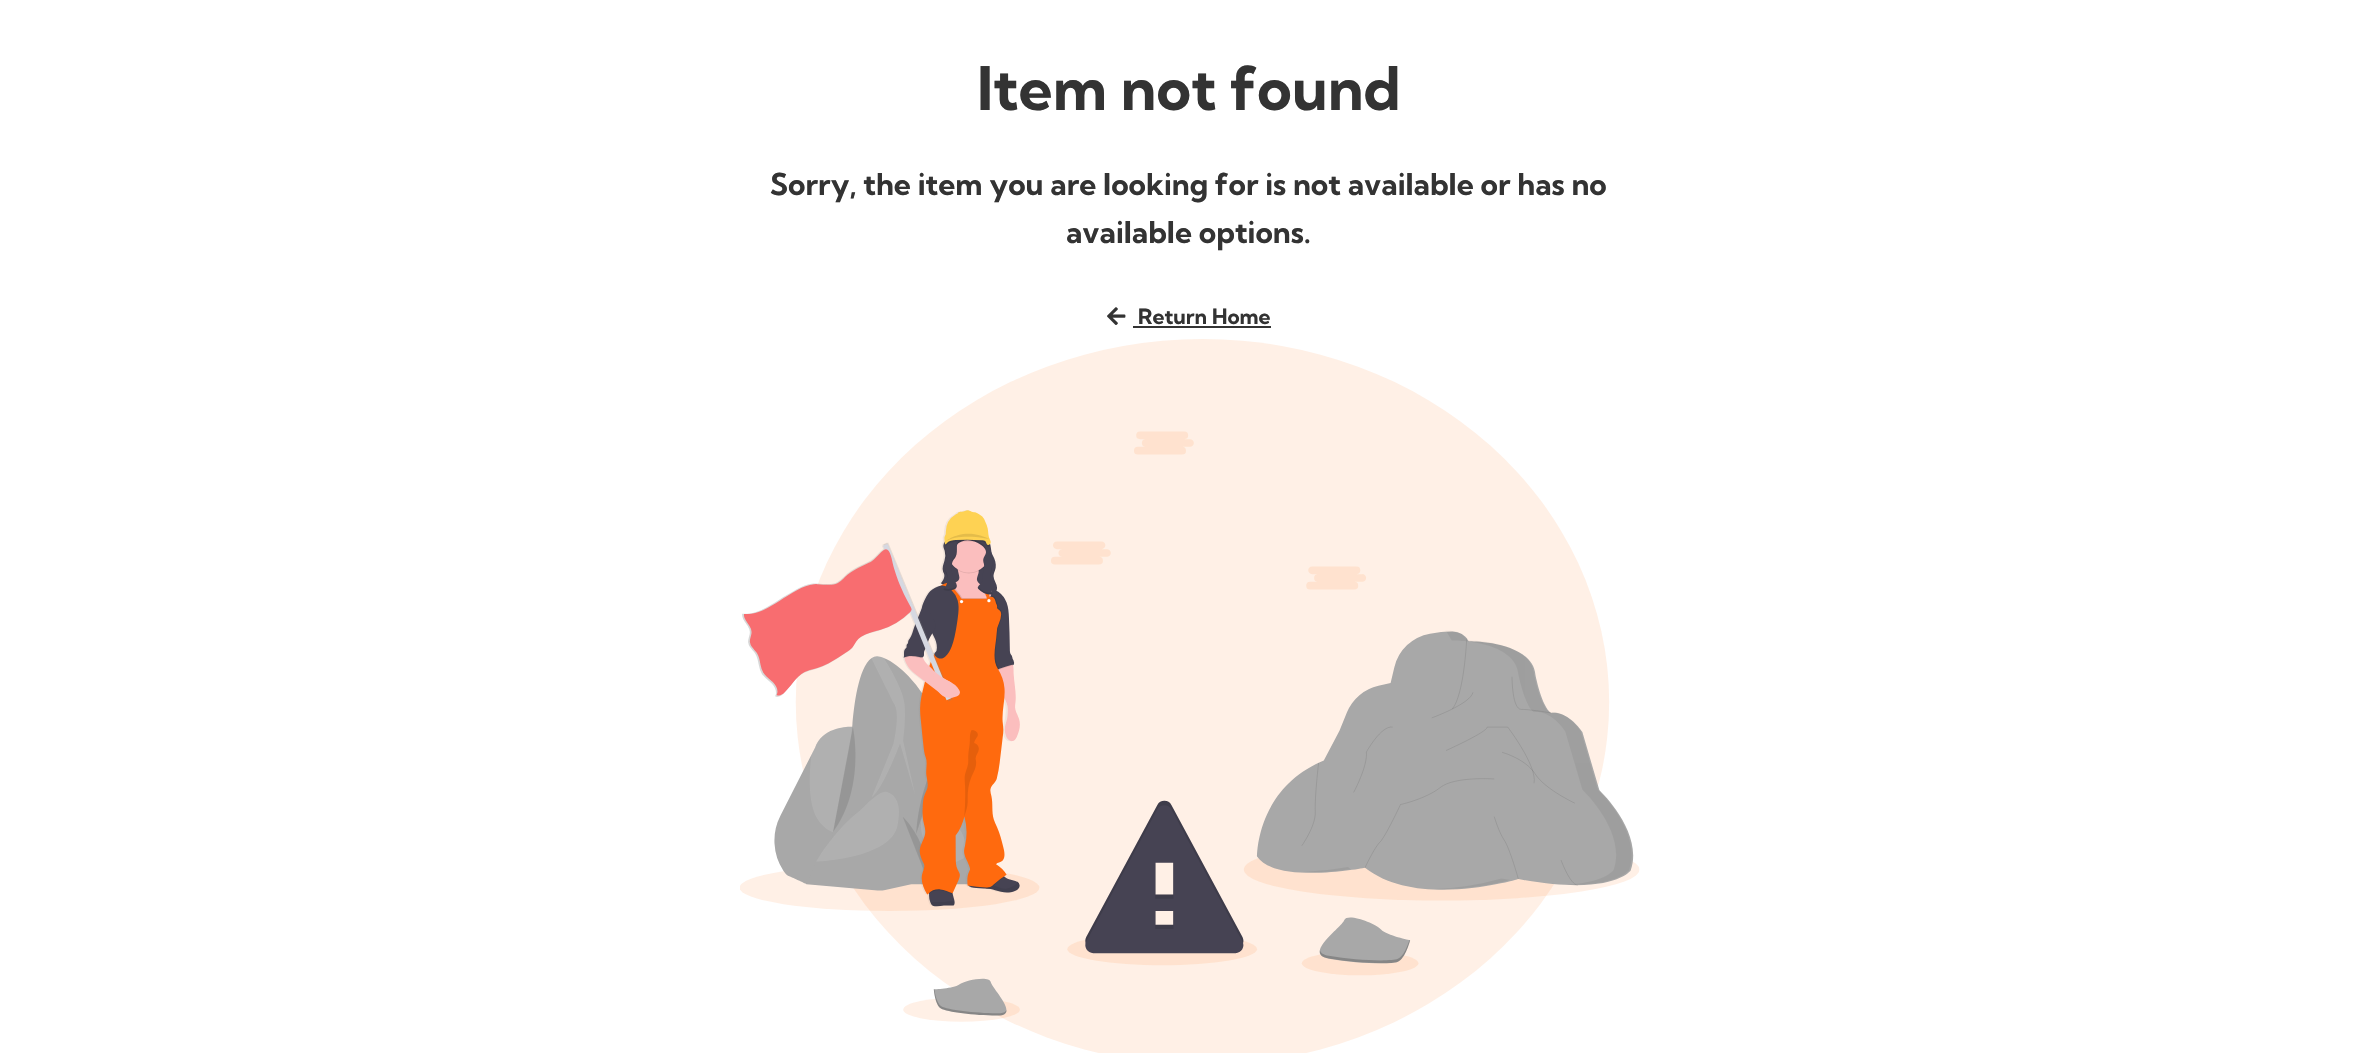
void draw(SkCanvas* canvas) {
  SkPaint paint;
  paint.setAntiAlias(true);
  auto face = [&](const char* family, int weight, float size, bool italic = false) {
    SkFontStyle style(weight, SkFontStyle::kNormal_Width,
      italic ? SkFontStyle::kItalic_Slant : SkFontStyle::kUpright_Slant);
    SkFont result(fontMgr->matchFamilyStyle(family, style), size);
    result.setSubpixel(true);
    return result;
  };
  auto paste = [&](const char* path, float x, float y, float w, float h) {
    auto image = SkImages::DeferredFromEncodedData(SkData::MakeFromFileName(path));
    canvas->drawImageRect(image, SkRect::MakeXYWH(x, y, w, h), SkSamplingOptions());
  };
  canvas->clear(0xffffffff);
  paste("img/1.png", 1107, 307, 19, 18);
  paint.setColor(0xff333333);
  canvas->drawRect(SkRect::MakeXYWH(1133, 326, 138, 2), paint);
  paste("img/2.png", 740, 339, 900, 714);
  auto f0 = face("Kumbh Sans", 700, 60);
  canvas->drawString("Item not found", 977, 110, f0, paint);
  auto f1 = face("Kumbh Sans", 700, 30);
  canvas->drawString("Sorry, the item you are looking for is not available or has no", 770, 195, f1, paint);
  canvas->drawString("available options.", 1066, 243, f1, paint);
  auto f2 = face("Kumbh Sans", 700, 21);
  canvas->drawString("Return Home", 1138, 324, f2, paint);
}
